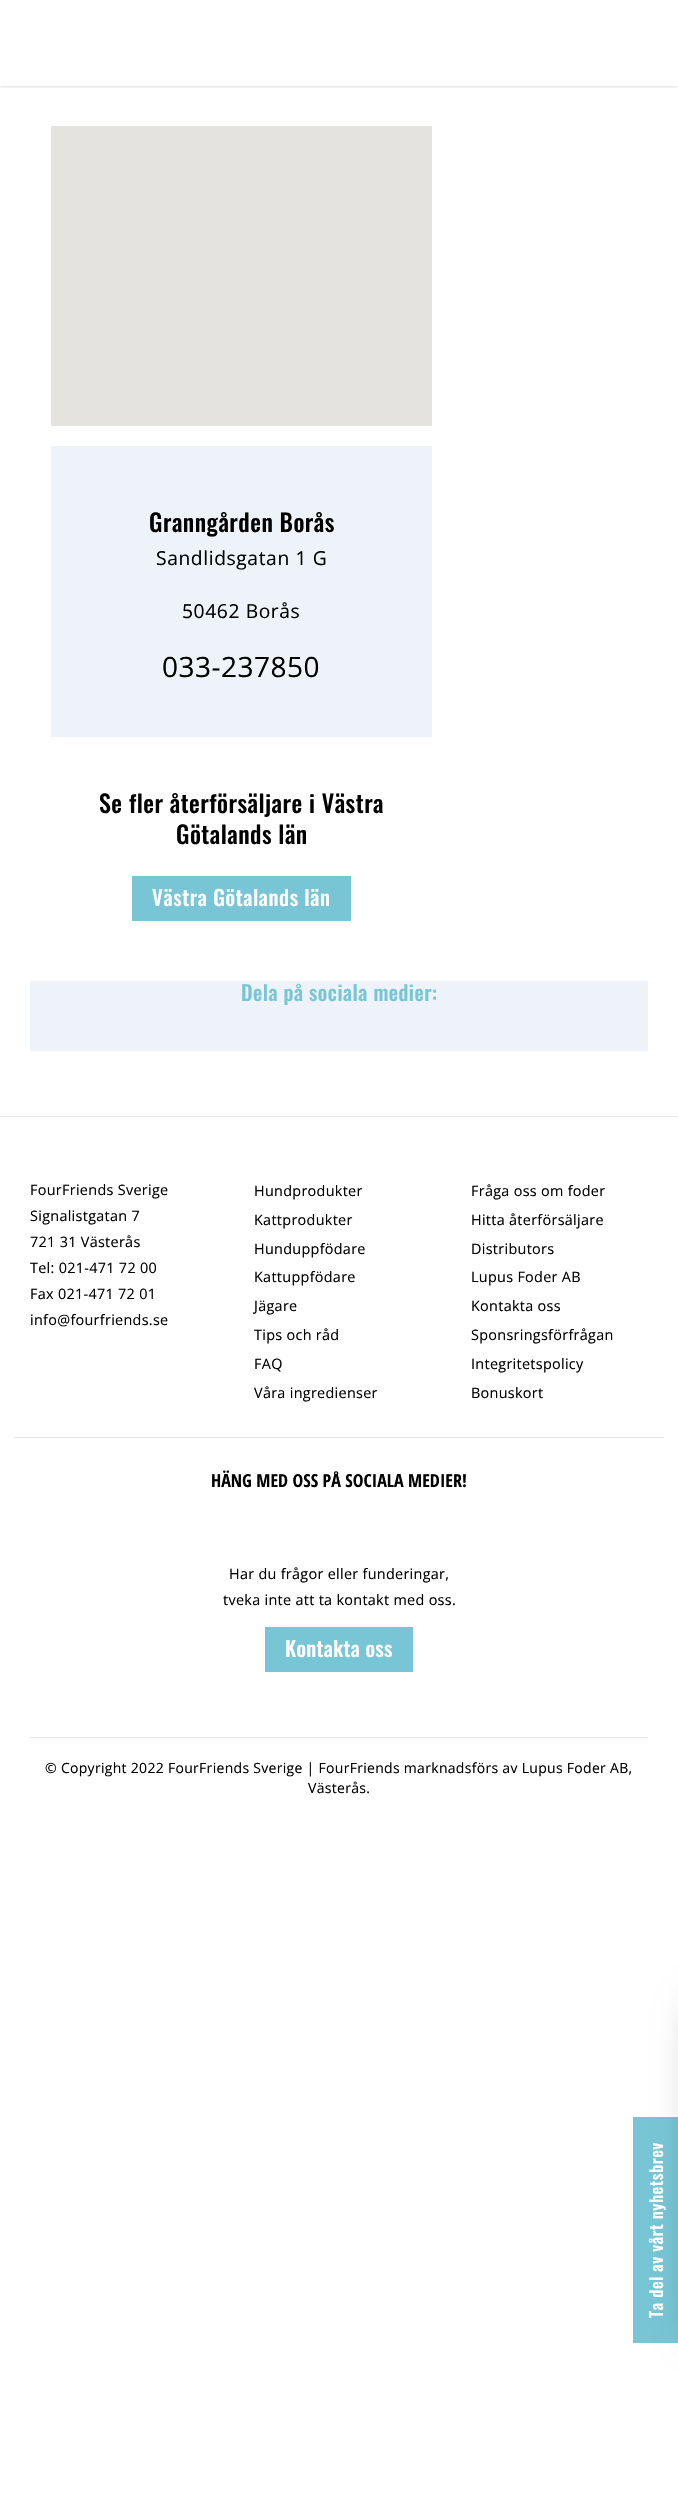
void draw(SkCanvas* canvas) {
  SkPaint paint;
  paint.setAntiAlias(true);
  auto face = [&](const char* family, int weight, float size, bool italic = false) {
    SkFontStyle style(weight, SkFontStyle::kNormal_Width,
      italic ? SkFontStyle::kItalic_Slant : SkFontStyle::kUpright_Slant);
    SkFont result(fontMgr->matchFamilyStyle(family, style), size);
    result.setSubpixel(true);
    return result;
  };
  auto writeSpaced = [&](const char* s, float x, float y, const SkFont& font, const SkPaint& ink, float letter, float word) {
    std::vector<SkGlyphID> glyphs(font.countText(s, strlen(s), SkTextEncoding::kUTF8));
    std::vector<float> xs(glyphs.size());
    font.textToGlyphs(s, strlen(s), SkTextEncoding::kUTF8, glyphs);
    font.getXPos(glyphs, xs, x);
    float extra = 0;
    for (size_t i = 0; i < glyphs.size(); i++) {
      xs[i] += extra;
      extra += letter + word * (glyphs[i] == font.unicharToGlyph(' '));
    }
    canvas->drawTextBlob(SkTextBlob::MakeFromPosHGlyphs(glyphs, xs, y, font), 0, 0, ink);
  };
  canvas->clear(0xffffffff);
  canvas->save();
  canvas->clipRect(SkRect::MakeXYWH(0, 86, 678, 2));
  paint.setColor(0x1f000000);
  paint.setMaskFilter(SkMaskFilter::MakeBlur(kNormal_SkBlurStyle, 1.5f));
  canvas->drawRect(SkRect::MakeXYWH(0, 1, 678, 86), paint);
  paint.setMaskFilter(nullptr);
  canvas->restore();
  {
    const struct { float x, y, w, h; SkColor color; } items[] = {
      {51, 126, 381, 300, 0xffe5e3df},
      {51, 446, 381, 291, 0xffedf3f8},
      {132, 876, 219, 45, 0xff77c5d5},
      {30, 981, 618, 70, 0xffedf3f8},
      {0, 1116, 678, 1, 0xffe6e6e6},
      {14, 1437, 650, 1, 0xffe6e6e6},
      {265, 1627, 148, 45, 0xff77c5d5},
      {30, 1737, 618, 1, 0xffe6e6e6},
      {633, 2117, 45, 226, 0xff77c5d5},
    };
    for (auto [x, y, w, h, color] : items) {
      paint.setColor(color);
      canvas->drawRect(SkRect::MakeXYWH(x, y, w, h), paint);
    }
  }
  paint.setColor(0x4d000000);
  paint.setMaskFilter(SkMaskFilter::MakeBlur(kNormal_SkBlurStyle, 20));
  canvas->drawRect(SkRect::MakeXYWH(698, 2006, 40, 327), paint);
  paint.setMaskFilter(nullptr);
  auto f0 = face("Oswald", 500, 24);
  paint.setColor(0xff000000);
  writeSpaced("Granngården Borås", 149, 532, f0, paint, 0.5f, 0);
  auto f1 = face("Open Sans", 400, 19.25f);
  writeSpaced("Sandlidsgatan 1 G", 156, 565, f1, paint, 0.6f, 0);
  writeSpaced("50462 Borås", 182, 618, f1, paint, 0.6f, 0);
  auto f2 = face("Open Sans", 400, 28);
  writeSpaced("033-237850", 162, 677, f2, paint, 0.5f, 0);
  writeSpaced("Se fler återförsäljare i Västra", 99, 813, f0, paint, 0.5f, 0);
  writeSpaced("Götalands län", 176, 844, f0, paint, 0.5f, 0);
  auto f3 = face("Oswald", 500, 21);
  paint.setColor(0xffffffff);
  writeSpaced("Västra Götalands län", 152, 906, f3, paint, 0.6f, 0);
  auto f4 = face("Oswald", 500, 20.75f);
  paint.setColor(0xff77c5d5);
  writeSpaced("Dela på sociala medier:", 241, 1001, f4, paint, 0.5f, 0);
  auto f5 = face("Open Sans", 400, 14.4f);
  paint.setColor(0xff000000);
  {
    const struct { const char* s; float x, y; } items[] = {
      {"FourFriends Sverige", 30, 1195},
      {"Signalistgatan 7", 30, 1221},
      {"721 31 Västerås", 30, 1247},
      {"Tel: 021-471 72 00", 30, 1273},
      {"Fax 021-471 72 01", 30, 1299},
      {"info@fourfriends.se", 30, 1325},
      {"Hundprodukter", 254, 1196},
      {"Kattprodukter", 254, 1225},
      {"Hunduppfödare", 254, 1254},
      {"Kattuppfödare", 254, 1282},
      {"Jägare", 254, 1311},
      {"Tips och råd", 254, 1340},
      {"FAQ", 254, 1369},
      {"Våra ingredienser", 254, 1398},
      {"Fråga oss om foder", 471, 1196},
      {"Hitta återförsäljare", 471, 1225},
      {"Distributors", 471, 1254},
      {"Lupus Foder AB", 471, 1282},
      {"Kontakta oss", 471, 1311},
      {"Sponsringsförfrågan", 471, 1340},
      {"Integritetspolicy", 471, 1369},
      {"Bonuskort", 471, 1398},
    };
    for (auto [s, x, y] : items) {
      writeSpaced(s, x, y, f5, paint, 0.3f, 0);
    }
  }
  auto f6 = face("Open Sans Condensed", 700, 18);
  canvas->drawString("HÄNG MED OSS PÅ SOCIALA MEDIER!", 211, 1487, f6, paint);
  writeSpaced("Har du frågor eller funderingar,", 229, 1579, f5, paint, 0.3f, 0);
  writeSpaced("tveka inte att ta kontakt med oss.", 223, 1605, f5, paint, 0.3f, 0);
  paint.setColor(0xffffffff);
  writeSpaced("Kontakta oss", 285, 1657, f3, paint, 0.3f, 0);
  auto f7 = face("Open Sans", 400, 14);
  paint.setColor(0xff000000);
  writeSpaced("© Copyright 2022 FourFriends Sverige | FourFriends marknadsförs av Lupus Foder AB,", 45, 1773, f7, paint, 0.3f, 0);
  writeSpaced("Västerås.", 308, 1793, f7, paint, 0.3f, 0);
  auto f8 = face("Oswald", 500, 17);
  paint.setColor(0xffffffff);
  canvas->save();
  canvas->rotate(-90, 663, 2318);
  writeSpaced("Ta del av vårt nyhetsbrev", 663, 2318, f8, paint, 0.5f, 0);
  canvas->restore();
}
